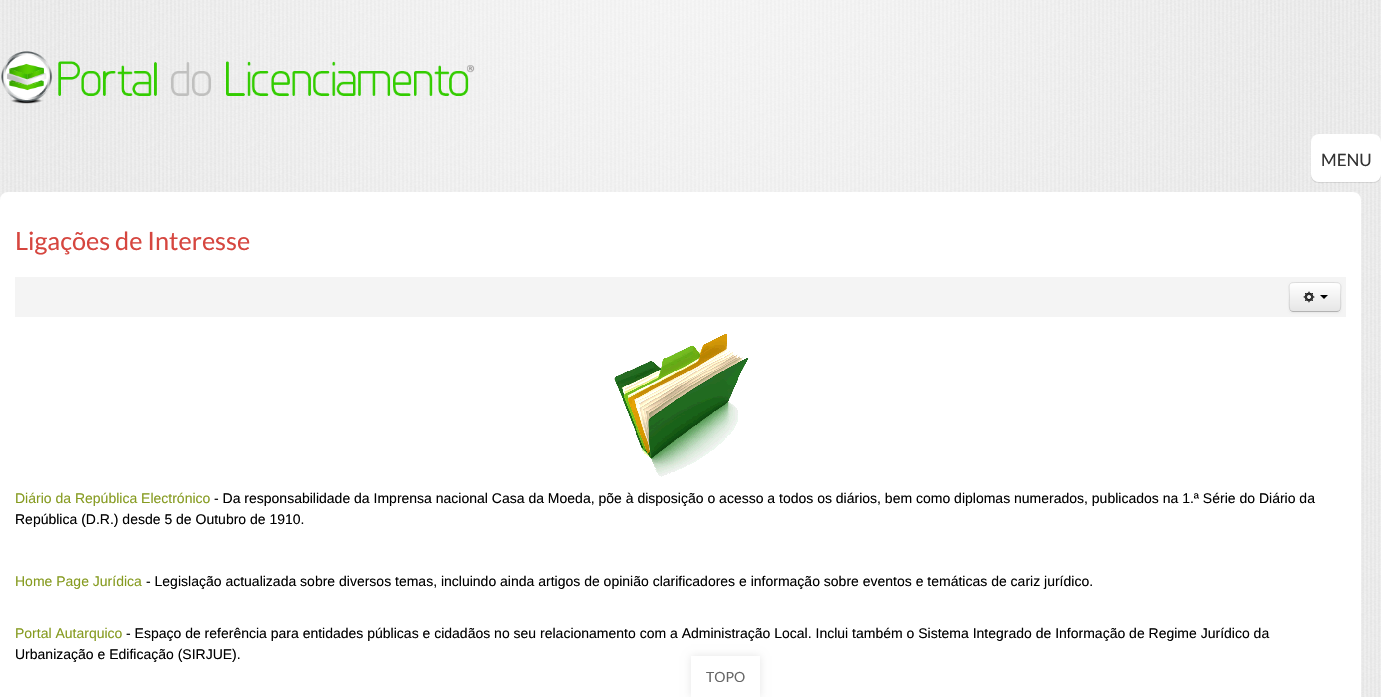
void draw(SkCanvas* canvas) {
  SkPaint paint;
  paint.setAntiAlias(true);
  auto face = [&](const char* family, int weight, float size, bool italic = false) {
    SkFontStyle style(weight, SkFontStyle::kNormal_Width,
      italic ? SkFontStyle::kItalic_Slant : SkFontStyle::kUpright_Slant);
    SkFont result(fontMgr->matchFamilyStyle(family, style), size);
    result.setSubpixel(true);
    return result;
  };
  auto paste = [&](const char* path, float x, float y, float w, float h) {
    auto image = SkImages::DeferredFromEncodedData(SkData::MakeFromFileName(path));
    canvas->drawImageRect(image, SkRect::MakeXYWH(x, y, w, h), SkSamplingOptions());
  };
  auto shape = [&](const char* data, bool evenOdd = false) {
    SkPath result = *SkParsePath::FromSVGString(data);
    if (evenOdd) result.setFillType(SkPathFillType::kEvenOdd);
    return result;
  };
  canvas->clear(0xffffffff);
  paste("img/1.png", 0, 0, 1381, 697);
  paste("img/2.png", 1, 51, 474, 53);
  paint.setColor(0x1a000000);
  canvas->drawPath(shape("M1311 174C1311 185 1320 183 1328 183H1364C1372 183 1381 185 1381 174C1381 178 1377 182 1373 182H1319C1315 182 1311 178 1311 174Z"), paint);
  paint.setColor(0xffffffff);
  canvas->drawRoundRect(SkRect::MakeXYWH(1311, 134, 70, 48), 8, 8, paint);
  canvas->drawRoundRect(SkRect::MakeXYWH(0, 192, 1361, 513), 8, 8, paint);
  paint.setColor(0xfff4f4f4);
  canvas->drawRect(SkRect::MakeXYWH(15, 277, 1331, 40), paint);
  paint.setColor(0x0d000000);
  paint.setMaskFilter(SkMaskFilter::MakeBlur(kNormal_SkBlurStyle, 1));
  canvas->drawRoundRect(SkRect::MakeXYWH(1289, 283, 52, 30), 4, 4, paint);
  paint.setMaskFilter(nullptr);
  paint.setColor(0xfff5f5f5);
  canvas->drawRoundRect(SkRect::MakeXYWH(1289, 282, 52, 30), 4, 4, paint);
  canvas->save();
  canvas->clipPath(shape("M1293 282H1337C1339 282 1341 284 1341 286V308C1341 310 1339 312 1337 312H1293C1291 312 1289 310 1289 308V286C1289 284 1291 282 1293 282Z"), true);
  {
    const SkColor colors[] = {0xffffffff, 0xffe6e6e6};
    const float stops[] = {0, 1};
    const SkPoint ends[] = {{1315, 283}, {1315, 311}};
    paint.setShader(SkGradientShader::MakeLinear(ends, colors, stops, 2, SkTileMode::kClamp));
    paint.setAlpha(255);
  }
  canvas->drawRect(SkRect::MakeXYWH(1289, 283, 52, 28), paint);
  canvas->restore();
  paint.setShader(nullptr);
  paint.setColor(0xffffffff);
  canvas->drawPath(shape("M1293 284H1337C1339 284 1340 285 1340 287C1340 281 1334 283 1330 283H1300C1296 283 1290 281 1290 287C1290 285 1291 284 1293 284Z"), paint);
  paint.setStroke(true);
  paint.setStrokeWidth(1);
  paint.setColor(0xffb3b3b3);
  canvas->drawPath(shape("M1339.5 310.5C1339 311 1338 311.5 1337 311.5H1293C1292 311.5 1291 311 1290.5 310.5"), paint);
  paint.setColor(0x1a000000);
  canvas->drawPath(shape("M1290.5 310.5C1288.5 308.5 1289.5 300 1289.5 297C1289.5 282.5 1286.5 282.5 1300.5 282.5H1329.5C1343.5 282.5 1340.5 282.5 1340.5 297C1340.5 300 1341.5 308.5 1339.5 310.5"), paint);
  paste("img/3.png", 1303, 291, 12, 12);
  paint.setStroke(false);
  paint.setColor(0xff000000);
  canvas->drawPath(shape("M1320 295H1328L1324 299Z"), paint);
  paste("img/4.png", 614, 334, 135, 143);
  canvas->save();
  canvas->clipPath(shape("M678 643H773V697H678ZM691 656H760V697H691Z", true), true);
  paint.setColor(0x1a000000);
  paint.setMaskFilter(SkMaskFilter::MakeBlur(kNormal_SkBlurStyle, 4));
  canvas->drawRect(SkRect::MakeXYWH(691, 656, 69, 41), paint);
  paint.setMaskFilter(nullptr);
  canvas->restore();
  auto f0 = face("Lato", 400, 17);
  paint.setColor(0xff333333);
  canvas->drawString("MENU", 1321, 166, f0, paint);
  auto f1 = face("Lato", 400, 25.25f);
  paint.setColor(0xffd6463f);
  canvas->drawString("Ligações de Interesse", 15, 250, f1, paint);
  auto f2 = face("Liberation Sans", 400, 14);
  paint.setColor(0xff869b20);
  canvas->drawString("Diário da República Electrónico", 15, 503, f2, paint);
  paint.setColor(0xff000000);
  canvas->drawString("- Da responsabilidade da Imprensa nacional Casa da Moeda, põe à disposição o acesso a todos os diários, bem como diplomas numerados, publicados na 1.ª Série do Diário da", 214, 503, f2, paint);
  canvas->drawString("República (D.R.) desde 5 de Outubro de 1910.", 15, 524, f2, paint);
  paint.setColor(0xff869b20);
  canvas->drawString("Home Page Jurídica", 15, 586, f2, paint);
  paint.setColor(0xff000000);
  canvas->drawString("- Legislação actualizada sobre diversos temas, incluindo ainda artigos de opinião clarificadores e informação sobre eventos e temáticas de cariz jurídico.", 146, 586, f2, paint);
  paint.setColor(0xff869b20);
  canvas->drawString("Portal Autarquico", 15, 638, f2, paint);
  paint.setColor(0xff000000);
  canvas->drawString("- Espaço de referência para entidades públicas e cidadãos no seu relacionamento com a Administração Local. Inclui também o Sistema Integrado de Informação de Regime Jurídico da", 126, 638, f2, paint);
  canvas->drawString("Urbanização e Edificação (SIRJUE).", 15, 659, f2, paint);
  auto f3 = face("Lato", 400, 14);
  paint.setColor(0xff666666);
  canvas->drawString("TOPO", 706, 682, f3, paint);
}
